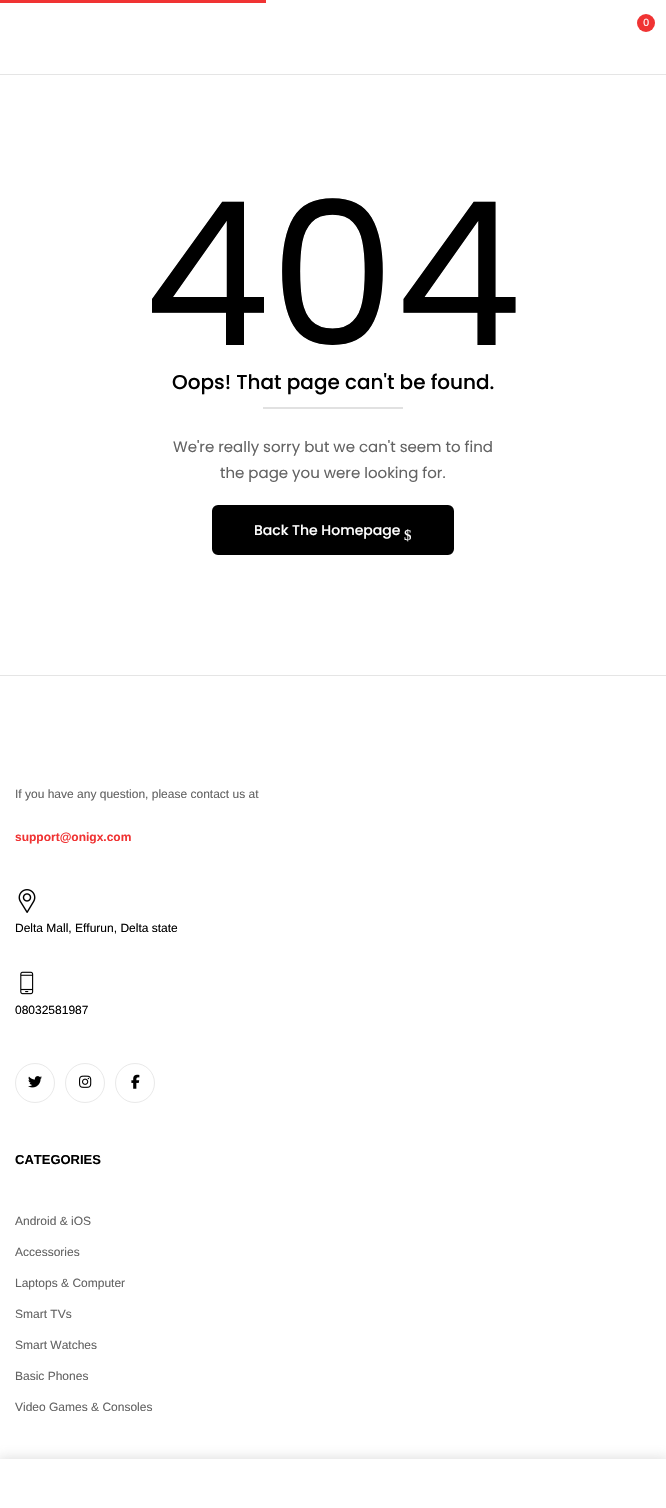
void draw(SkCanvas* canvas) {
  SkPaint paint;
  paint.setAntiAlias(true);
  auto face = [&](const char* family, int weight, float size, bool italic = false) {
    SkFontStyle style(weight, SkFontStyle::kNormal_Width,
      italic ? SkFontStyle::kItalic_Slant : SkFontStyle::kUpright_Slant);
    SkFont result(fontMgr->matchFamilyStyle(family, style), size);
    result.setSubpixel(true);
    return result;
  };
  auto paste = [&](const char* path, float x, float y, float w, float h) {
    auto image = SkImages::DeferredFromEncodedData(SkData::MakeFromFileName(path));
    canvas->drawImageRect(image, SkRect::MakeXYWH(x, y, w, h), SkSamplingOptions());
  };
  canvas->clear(0xffffffff);
  paint.setColor(0xfff03333);
  canvas->drawRect(SkRect::MakeXYWH(0, 0, 266, 3), paint);
  paint.setColor(0xffe5e5e5);
  canvas->drawRect(SkRect::MakeXYWH(0, 74, 666, 1), paint);
  paint.setColor(0xfff03333);
  canvas->drawCircle(646, 23, 9, paint);
  paint.setColor(0x4d8f8f8f);
  paint.setMaskFilter(SkMaskFilter::MakeBlur(kNormal_SkBlurStyle, 6));
  canvas->drawRect(SkRect::MakeXYWH(-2, 1458, 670, 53), paint);
  paint.setMaskFilter(nullptr);
  paint.setColor(0xffffffff);
  canvas->drawRect(SkRect::MakeXYWH(0, 1459, 666, 49), paint);
  paint.setColor(0xffe1e1e1);
  canvas->drawRect(SkRect::MakeXYWH(263, 407, 140, 2), paint);
  paint.setColor(0xff000000);
  canvas->drawRoundRect(SkRect::MakeXYWH(213, 506, 240, 48), 5, 5, paint);
  paint.setStroke(true);
  paint.setStrokeWidth(2);
  canvas->drawRoundRect(SkRect::MakeXYWH(213, 506, 240, 48), 5, 5, paint);
  paint.setStroke(false);
  paint.setColor(0xffe5e5e5);
  canvas->drawRect(SkRect::MakeXYWH(0, 675, 666, 1), paint);
  paste("img/1.png", 18, 889, 18, 24);
  paste("img/2.png", 20, 971, 14, 24);
  paint.setStroke(true);
  paint.setStrokeWidth(1);
  paint.setColor(0xffe9e9e9);
  canvas->drawCircle(35, 1083, 19.5f, paint);
  paste("img/3.png", 28, 1076, 14, 12);
  canvas->drawCircle(85, 1083, 19.5f, paint);
  paste("img/4.png", 79, 1075, 13, 13);
  canvas->drawCircle(135, 1083, 19.5f, paint);
  paste("img/5.png", 131, 1074, 9, 15);
  auto f0 = face("Poppins", 400, 10);
  paint.setStroke(false);
  paint.setColor(0xffffffff);
  canvas->drawString("0", 643, 26, f0, paint);
  auto f1 = face("Poppins", 400, 200);
  paint.setColor(0xff000000);
  canvas->drawString("404", 144, 345, f1, paint);
  auto f2 = face("Poppins", 500, 20);
  canvas->drawString("Oops! That page can't be found.", 172, 389, f2, paint);
  auto f3 = face("Poppins", 400, 15);
  paint.setColor(0xff636363);
  canvas->drawString("We're really sorry but we can't seem to find", 173, 452, f3, paint);
  canvas->drawString("the page you were looking for.", 220, 478, f3, paint);
  auto f4 = face("Poppins", 500, 14);
  paint.setColor(0xffffffff);
  canvas->drawString("Back The Homepage", 254, 535, f4, paint);
  auto f5 = face("Liberation Serif", 400, 15);
  canvas->drawString("$", 404, 540, f5, paint);
  auto f6 = face("Liberation Sans", 400, 12);
  paint.setColor(0xff636363);
  canvas->drawString("If you have any question, please contact us at", 15, 798, f6, paint);
  auto f7 = face("Liberation Sans", 700, 12);
  paint.setColor(0xfff03333);
  canvas->drawString("support@onigx.com", 15, 841, f7, paint);
  paint.setColor(0xff000000);
  canvas->drawString("Delta Mall, Effurun, Delta state", 15, 932, f6, paint);
  canvas->drawString("08032581987", 15, 1014, f6, paint);
  auto f8 = face("Liberation Sans", 700, 13);
  canvas->drawString("CATEGORIES", 15, 1164, f8, paint);
  paint.setColor(0xff636363);
  {
    const struct { const char* s; float x, y; } items[] = {
      {"Android & iOS", 15, 1225},
      {"Accessories", 15, 1256},
      {"Laptops & Computer", 15, 1287},
      {"Smart TVs", 15, 1318},
      {"Smart Watches", 15, 1349},
      {"Basic Phones", 15, 1380},
      {"Video Games & Consoles", 15, 1411},
    };
    for (auto [s, x, y] : items) {
      canvas->drawString(s, x, y, f6, paint);
    }
  }
}
